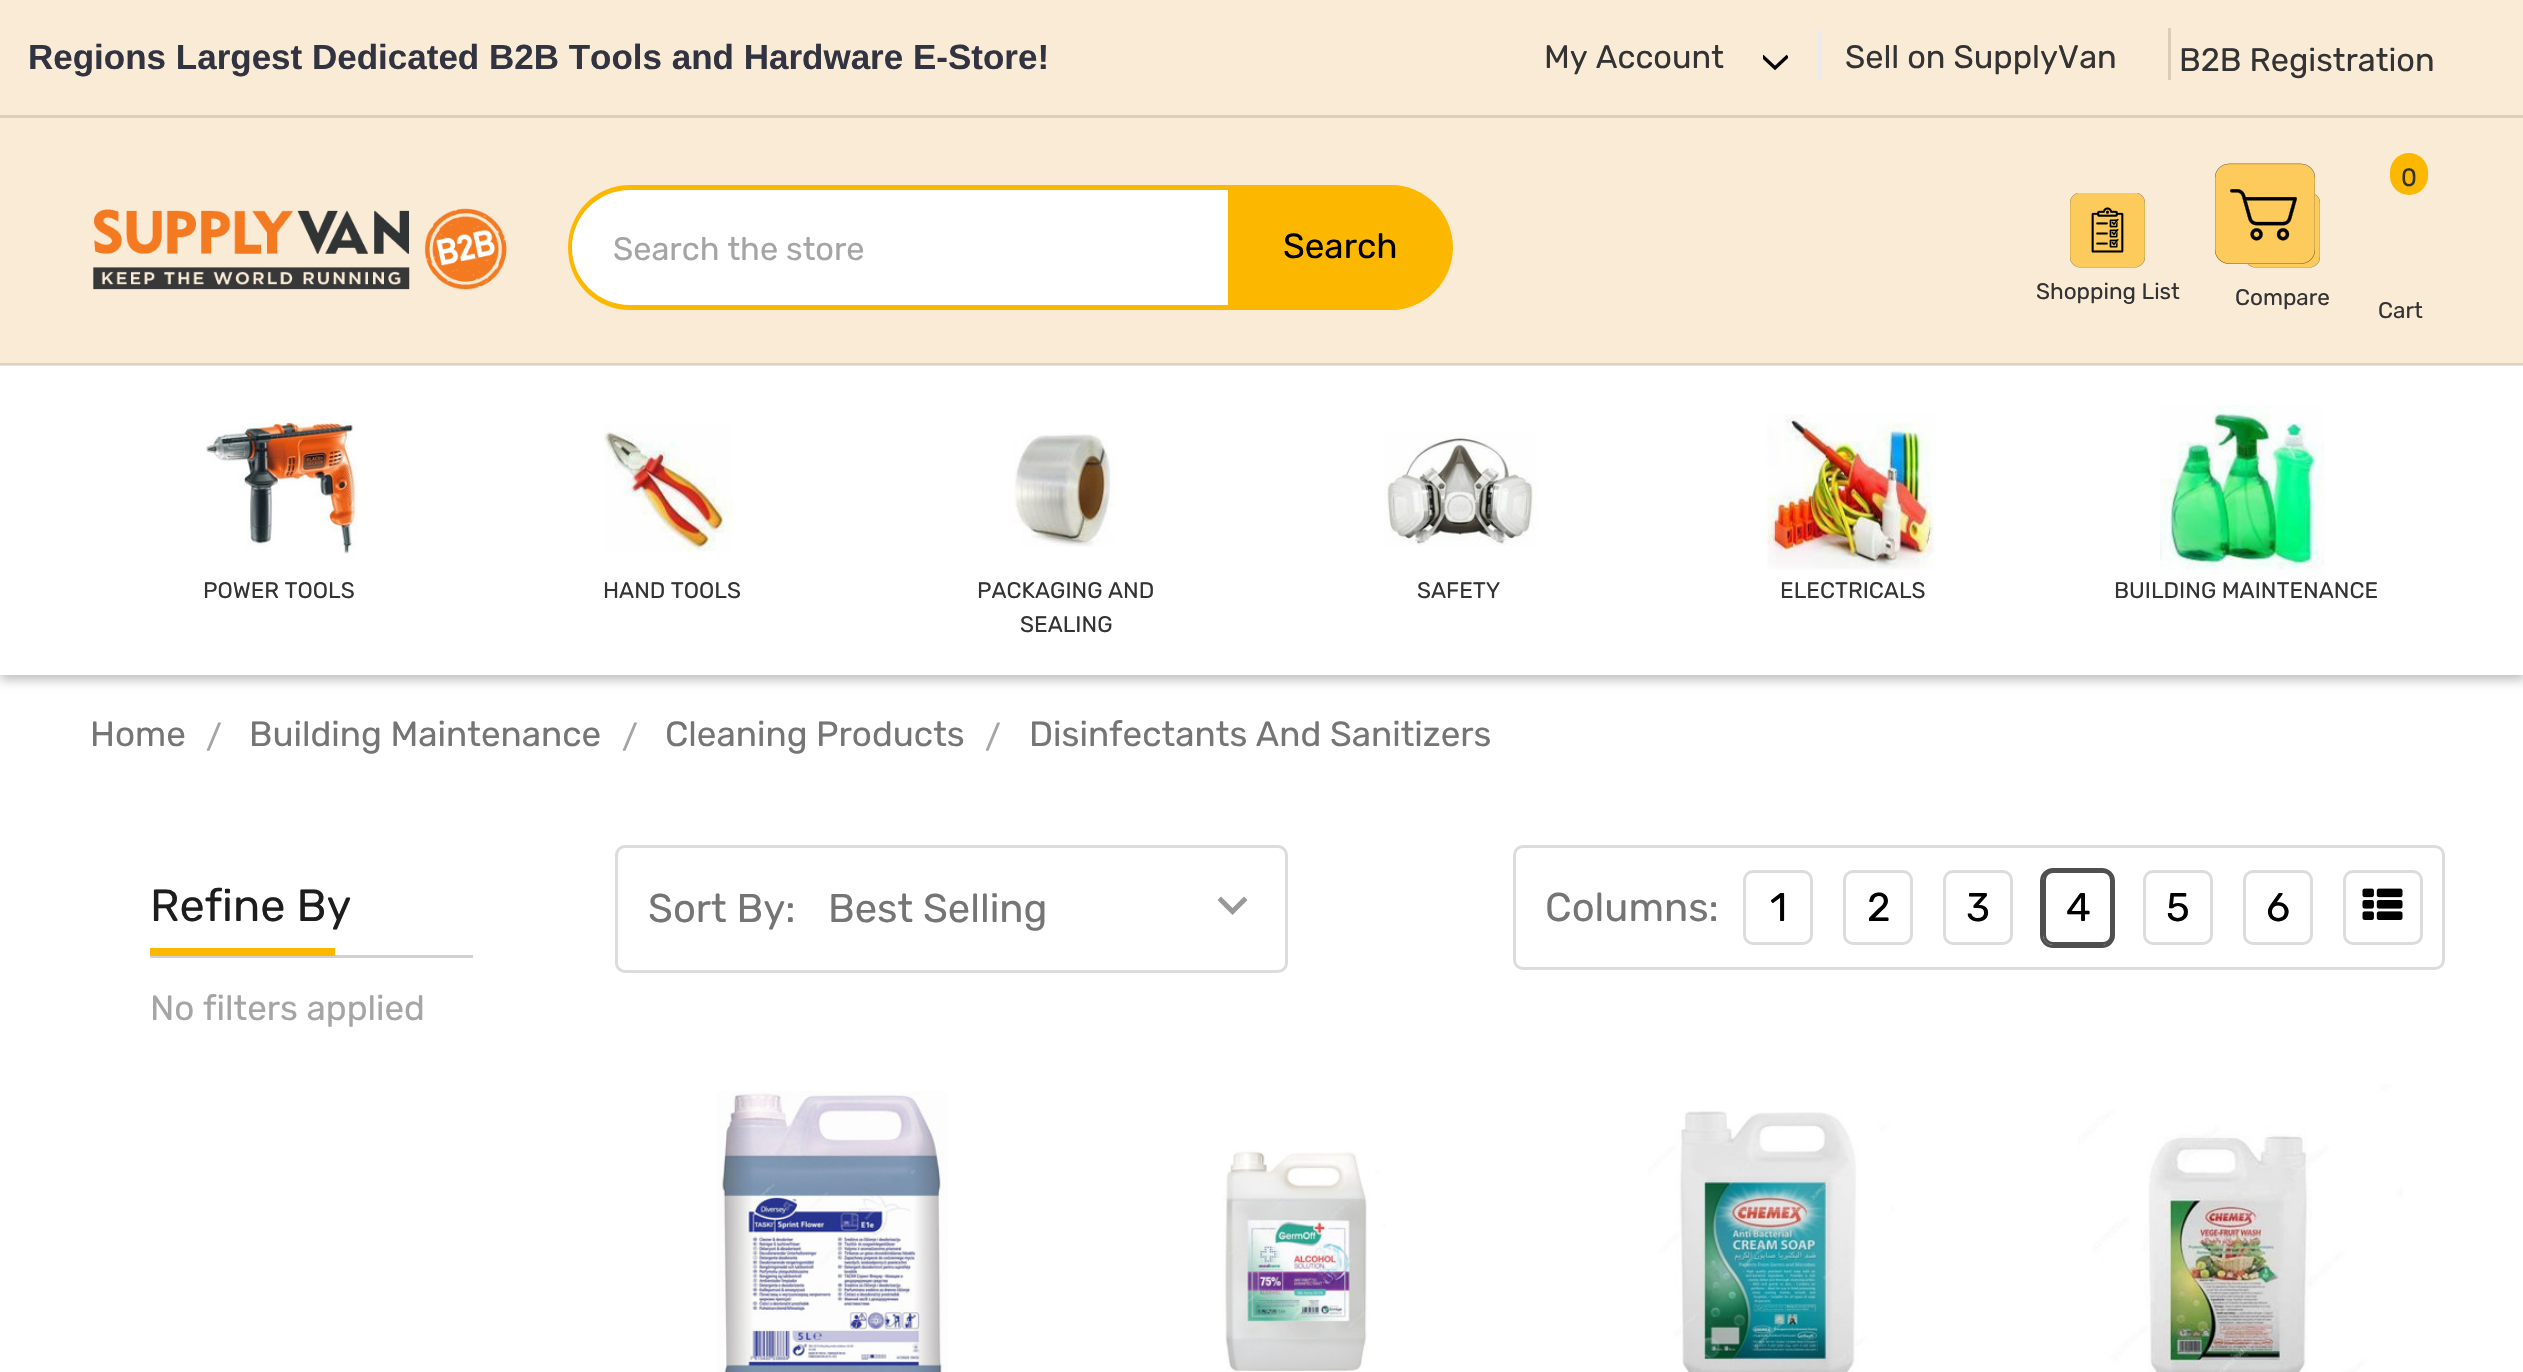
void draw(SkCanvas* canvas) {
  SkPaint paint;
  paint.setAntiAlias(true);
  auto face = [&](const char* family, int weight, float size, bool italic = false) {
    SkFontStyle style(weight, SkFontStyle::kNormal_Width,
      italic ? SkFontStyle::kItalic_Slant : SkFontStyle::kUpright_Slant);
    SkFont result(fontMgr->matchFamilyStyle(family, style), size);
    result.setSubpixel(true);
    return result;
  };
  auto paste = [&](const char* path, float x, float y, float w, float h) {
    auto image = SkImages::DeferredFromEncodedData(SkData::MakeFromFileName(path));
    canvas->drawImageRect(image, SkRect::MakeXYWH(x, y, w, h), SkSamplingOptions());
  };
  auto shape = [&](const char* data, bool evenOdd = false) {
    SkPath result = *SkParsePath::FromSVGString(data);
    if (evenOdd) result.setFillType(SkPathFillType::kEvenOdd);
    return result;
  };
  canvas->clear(0xffffffff);
  paint.setColor(0x40000000);
  paint.setMaskFilter(SkMaskFilter::MakeBlur(kNormal_SkBlurStyle, 5));
  canvas->drawRect(SkRect::MakeXYWH(0, 5, 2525, 675), paint);
  paint.setMaskFilter(nullptr);
  {
    const struct { float x, y, w, h; SkColor color; } items[] = {
      {0, 366, 2523, 309, 0xffffffff},
      {0, 365, 2523, 1, 0xffe3e3e3},
      {0, 0, 2523, 115, 0xfffaebd7},
      {0, 115, 2523, 3, 0xffdccfbd},
    };
    for (auto [x, y, w, h, color] : items) {
      paint.setColor(color);
      canvas->drawRect(SkRect::MakeXYWH(x, y, w, h), paint);
    }
  }
  paste("img/1.png", 1763, 54, 25, 17);
  {
    const struct { float x, y, w, h; SkColor color; } items[] = {
      {1818, 30, 3, 50, 0xffebebeb},
      {2168, 28, 3, 52, 0xffdaccbb},
      {0, 118, 2523, 245, 0xfffaebd7},
      {0, 363, 2523, 2, 0xffdfd1bf},
    };
    for (auto [x, y, w, h, color] : items) {
      paint.setColor(color);
      canvas->drawRect(SkRect::MakeXYWH(x, y, w, h), paint);
    }
  }
  paste("img/2.png", 93, 208, 414, 82);
  paint.setColor(0xffffffff);
  canvas->drawRoundRect(SkRect::MakeXYWH(568, 185, 885, 125), 62.5f, 62.5f, paint);
  paint.setColor(0xfffcb700);
  canvas->drawPath(shape("M630 185H1390C1425 185 1452 213 1452 248C1452 282 1425 310 1390 310H630C595 310 568 282 568 248C568 213 595 185 630 185ZM630 190H1390C1425 190 1452 216 1452 248C1452 279 1425 305 1390 305H630C598 305 572 279 572 248C572 216 598 190 630 190Z", true), paint);
  canvas->drawPath(shape("M1228 185H1390.5C1425 185 1453 213 1453 247.5C1453 282 1425 310 1390.5 310H1228Z"), paint);
  paste("img/3.png", 2070, 193, 75, 75);
  paste("img/4.png", 2247, 194, 73, 74);
  paste("img/5.png", 2215, 163, 100, 101);
  canvas->drawRoundRect(SkRect::MakeXYWH(2390, 153, 38, 42), 19, 19, paint);
  paste("img/6.png", 204, 419, 153, 139);
  paste("img/7.png", 604, 424, 129, 129);
  paste("img/8.png", 1014, 433, 102, 114);
  paste("img/9.png", 1384, 432, 153, 114);
  paste("img/10.png", 1767, 414, 169, 156);
  paste("img/11.png", 2160, 405, 165, 170);
  paint.setColor(0xffd1d1d1);
  canvas->drawRect(SkRect::MakeXYWH(150, 955, 323, 3), paint);
  paint.setColor(0xfffcb700);
  canvas->drawRect(SkRect::MakeXYWH(150, 948, 185, 8), paint);
  paint.setStroke(true);
  paint.setStrokeWidth(3);
  paint.setColor(0xffdcdcdc);
  canvas->drawRoundRect(SkRect::MakeXYWH(616.5f, 846.5f, 670, 125), 8.5f, 8.5f, paint);
  paint.setStroke(false);
  paint.setColor(0xff999999);
  canvas->drawPath(shape("M1244 896.5L1232.5 908L1221 896.5L1217.5 900L1232.5 915L1247.5 900Z"), paint);
  paint.setStroke(true);
  paint.setColor(0xffdcdcdc);
  canvas->drawRoundRect(SkRect::MakeXYWH(1514.5f, 846.5f, 929, 122), 8.5f, 8.5f, paint);
  canvas->drawRoundRect(SkRect::MakeXYWH(1744.5f, 871.5f, 67, 72), 8.5f, 8.5f, paint);
  canvas->drawRoundRect(SkRect::MakeXYWH(1844.5f, 871.5f, 67, 72), 8.5f, 8.5f, paint);
  canvas->drawRoundRect(SkRect::MakeXYWH(1944.5f, 871.5f, 67, 72), 8.5f, 8.5f, paint);
  paint.setColor(0xff4f4f4f);
  canvas->drawRoundRect(SkRect::MakeXYWH(2041.5f, 869.5f, 72, 77), 11.5f, 11.5f, paint);
  canvas->drawRoundRect(SkRect::MakeXYWH(2044.5f, 871.5f, 67, 72), 8.5f, 8.5f, paint);
  paint.setColor(0xffdcdcdc);
  canvas->drawRoundRect(SkRect::MakeXYWH(2144.5f, 871.5f, 67, 72), 8.5f, 8.5f, paint);
  canvas->drawRoundRect(SkRect::MakeXYWH(2244.5f, 871.5f, 67, 72), 8.5f, 8.5f, paint);
  canvas->drawRoundRect(SkRect::MakeXYWH(2344.5f, 871.5f, 77, 72), 8.5f, 8.5f, paint);
  paste("img/12.png", 2362, 888, 41, 32);
  paste("img/13.png", 717, 1091, 231, 281);
  paste("img/14.png", 1222, 1149, 164, 223);
  paste("img/15.png", 1648, 1111, 246, 261);
  paste("img/16.png", 2078, 1084, 325, 288);
  auto f0 = face("Liberation Sans", 700, 35);
  paint.setStroke(false);
  paint.setColor(0xff313440);
  canvas->drawString("Regions Largest Dedicated B2B Tools and Hardware E-Store!", 28, 69, f0, paint);
  auto f1 = face("Rubik", 400, 32.5f);
  paint.setColor(0xff333333);
  {
    const struct { const char* s; float x, y; } items[] = {
      {"My Account", 1544, 68},
      {"Sell on SupplyVan", 1845, 68},
      {"B2B Registration", 2179, 71},
    };
    for (auto [s, x, y] : items) {
      canvas->drawString(s, x, y, f1, paint);
    }
  }
  paint.setColor(0xffa5a5a5);
  canvas->drawString("Search the store", 613, 260, f1, paint);
  auto f2 = face("Rubik", 400, 35);
  paint.setColor(0xff000000);
  canvas->drawString("Search", 1283, 258, f2, paint);
  auto f3 = face("Rubik", 400, 22.5f);
  paint.setColor(0xff333333);
  canvas->drawString("Shopping List", 2036, 299, f3, paint);
  canvas->drawString("Compare", 2235, 305, f3, paint);
  auto f4 = face("Rubik", 400, 25);
  canvas->drawString("0", 2401, 186, f4, paint);
  {
    const struct { const char* s; float x, y; } items[] = {
      {"Cart", 2378, 318},
      {"POWER TOOLS", 203, 598},
      {"HAND TOOLS", 603, 598},
      {"PACKAGING AND", 977, 598},
      {"SEALING", 1020, 632},
      {"SAFETY", 1417, 598},
      {"ELECTRICALS", 1780, 598},
      {"BUILDING MAINTENANCE", 2114, 598},
    };
    for (auto [s, x, y] : items) {
      canvas->drawString(s, x, y, f3, paint);
    }
  }
  paint.setColor(0xff757575);
  canvas->drawString("Home", 90, 746, f2, paint);
  paint.setColor(0xffa5a5a5);
  canvas->drawString("/", 206, 748, f1, paint);
  paint.setColor(0xff757575);
  canvas->drawString("Building Maintenance", 249, 746, f2, paint);
  paint.setColor(0xffa5a5a5);
  canvas->drawString("/", 622, 748, f1, paint);
  paint.setColor(0xff757575);
  canvas->drawString("Cleaning Products", 665, 746, f2, paint);
  paint.setColor(0xffa5a5a5);
  canvas->drawString("/", 985, 748, f1, paint);
  paint.setColor(0xff757575);
  canvas->drawString("Disinfectants And Sanitizers", 1029, 746, f2, paint);
  auto f5 = face("Rubik", 400, 45);
  paint.setColor(0xff1d1d1d);
  canvas->drawString("Refine By", 150, 921, f5, paint);
  paint.setColor(0xffa5a5a5);
  canvas->drawString("No filters applied", 150, 1020, f2, paint);
  auto f6 = face("Rubik", 400, 40);
  paint.setColor(0xff757575);
  {
    const struct { const char* s; float x, y; } items[] = {
      {"Sort By:", 648, 922},
      {"Best Selling", 828, 922},
      {"Columns:", 1545, 921},
    };
    for (auto [s, x, y] : items) {
      canvas->drawString(s, x, y, f6, paint);
    }
  }
  paint.setColor(0xff000000);
  {
    const struct { const char* s; float x, y; } items[] = {
      {"1", 1770, 921},
      {"2", 1867, 921},
      {"3", 1966, 921},
      {"4", 2066, 921},
      {"5", 2166, 921},
      {"6", 2266, 921},
    };
    for (auto [s, x, y] : items) {
      canvas->drawString(s, x, y, f6, paint);
    }
  }
}
